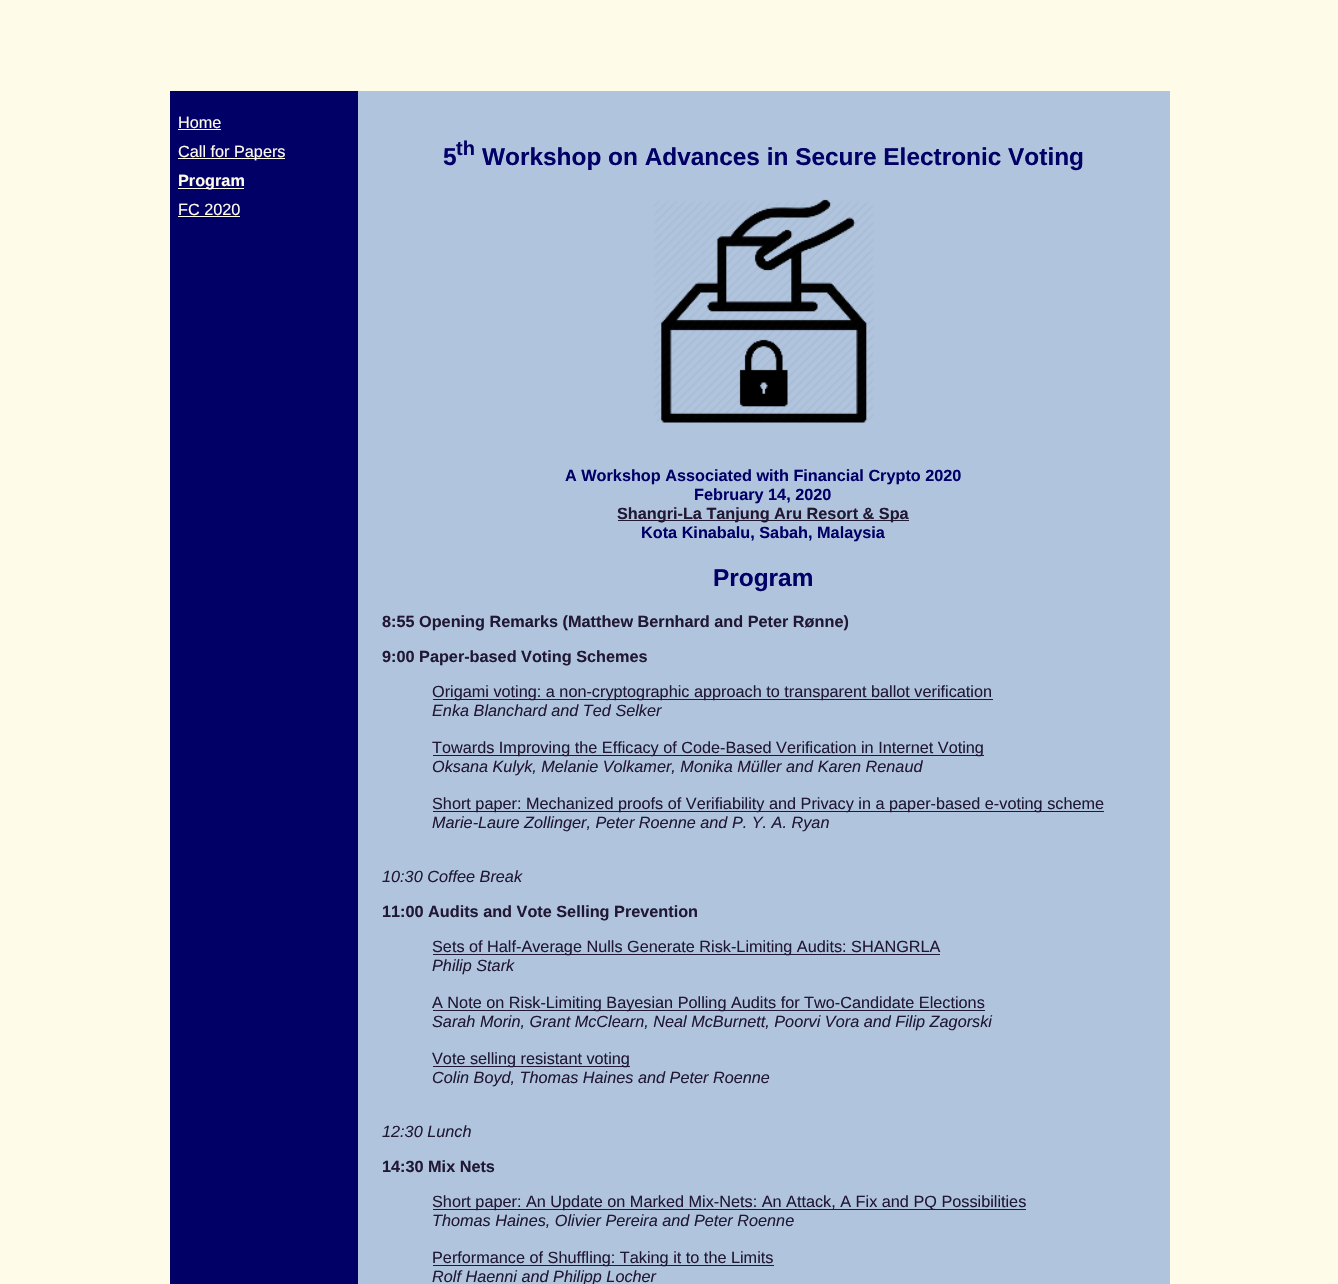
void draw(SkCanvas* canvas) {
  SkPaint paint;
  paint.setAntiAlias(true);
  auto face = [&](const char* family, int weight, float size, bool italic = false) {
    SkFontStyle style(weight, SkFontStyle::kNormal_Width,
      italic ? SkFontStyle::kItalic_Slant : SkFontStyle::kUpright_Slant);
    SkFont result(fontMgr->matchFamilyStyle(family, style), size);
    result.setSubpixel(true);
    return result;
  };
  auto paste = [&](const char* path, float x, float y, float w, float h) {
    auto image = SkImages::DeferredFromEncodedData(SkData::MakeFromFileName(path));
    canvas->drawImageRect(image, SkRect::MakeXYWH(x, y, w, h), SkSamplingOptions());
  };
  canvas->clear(0xfffffbe9);
  {
    const struct { float x, y, w, h; SkColor color; } items[] = {
      {170, 91, 188, 1193, 0xff010066},
      {178, 129, 43, 1, 0xfffffbe9},
      {178, 158, 107, 1, 0xfffffbe9},
      {178, 188, 66, 1, 0xfffffbe9},
      {178, 216, 62, 1, 0xfffffbe9},
      {358, 91, 812, 1193, 0xffb0c4de},
    };
    for (auto [x, y, w, h, color] : items) {
      paint.setColor(color);
      canvas->drawRect(SkRect::MakeXYWH(x, y, w, h), paint);
    }
  }
  paste("img/1.png", 654, 199, 220, 224);
  {
    const struct { float x, y, w, h; SkColor color; } items[] = {
      {618, 520, 291, 1, 0xff211833},
      {433, 699, 560, 1, 0xff211833},
      {433, 755, 551, 1, 0xff211833},
      {433, 811, 671, 1, 0xff211833},
      {433, 954, 507, 1, 0xff211833},
      {433, 1010, 552, 1, 0xff211833},
      {433, 1066, 197, 1, 0xff211833},
      {433, 1209, 593, 1, 0xff211833},
      {433, 1265, 341, 1, 0xff211833},
    };
    for (auto [x, y, w, h, color] : items) {
      paint.setColor(color);
      canvas->drawRect(SkRect::MakeXYWH(x, y, w, h), paint);
    }
  }
  auto f0 = face("Liberation Sans", 400, 16.25f);
  paint.setColor(0xfffffbe9);
  canvas->drawString("Home", 178, 128, f0, paint);
  canvas->drawString("Call for Papers", 178, 157, f0, paint);
  auto f1 = face("Liberation Sans", 700, 16.25f);
  canvas->drawString("Program", 178, 186, f1, paint);
  canvas->drawString("FC 2020", 178, 215, f0, paint);
  auto f2 = face("Liberation Sans", 700, 24.4f);
  paint.setColor(0xff010066);
  canvas->drawString("5", 443, 165, f2, paint);
  auto f3 = face("Liberation Sans", 700, 20);
  canvas->drawString("th", 456, 155, f3, paint);
  canvas->drawString("Workshop on Advances in Secure Electronic Voting", 482, 165, f2, paint);
  canvas->drawString("A Workshop Associated with Financial Crypto 2020", 565, 481, f1, paint);
  canvas->drawString("February 14, 2020", 694, 500, f1, paint);
  paint.setColor(0xff211833);
  canvas->drawString("Shangri-La Tanjung Aru Resort & Spa", 617, 519, f1, paint);
  paint.setColor(0xff010066);
  canvas->drawString("Kota Kinabalu, Sabah, Malaysia", 641, 538, f1, paint);
  canvas->drawString("Program", 713, 586, f2, paint);
  paint.setColor(0xff211833);
  canvas->drawString("8:55 Opening Remarks (Matthew Bernhard and Peter Rønne)", 382, 627, f1, paint);
  canvas->drawString("9:00 Paper-based Voting Schemes", 382, 662, f1, paint);
  canvas->drawString("Origami voting: a non-cryptographic approach to transparent ballot verification", 432, 697, f0, paint);
  auto f4 = face("Liberation Sans", 400, 16.25f, true);
  canvas->drawString("Enka Blanchard and Ted Selker", 432, 716, f4, paint);
  canvas->drawString("Towards Improving the Efficacy of Code-Based Verification in Internet Voting", 432, 753, f0, paint);
  canvas->drawString("Oksana Kulyk, Melanie Volkamer, Monika Müller and Karen Renaud", 432, 772, f4, paint);
  canvas->drawString("Short paper: Mechanized proofs of Verifiability and Privacy in a paper-based e-voting scheme", 432, 809, f0, paint);
  canvas->drawString("Marie-Laure Zollinger, Peter Roenne and P. Y. A. Ryan", 432, 828, f4, paint);
  canvas->drawString("10:30 Coffee Break", 382, 882, f4, paint);
  canvas->drawString("11:00 Audits and Vote Selling Prevention", 382, 917, f1, paint);
  canvas->drawString("Sets of Half-Average Nulls Generate Risk-Limiting Audits: SHANGRLA", 432, 952, f0, paint);
  canvas->drawString("Philip Stark", 432, 971, f4, paint);
  canvas->drawString("A Note on Risk-Limiting Bayesian Polling Audits for Two-Candidate Elections", 432, 1008, f0, paint);
  canvas->drawString("Sarah Morin, Grant McClearn, Neal McBurnett, Poorvi Vora and Filip Zagorski", 432, 1027, f4, paint);
  canvas->drawString("Vote selling resistant voting", 432, 1064, f0, paint);
  canvas->drawString("Colin Boyd, Thomas Haines and Peter Roenne", 432, 1083, f4, paint);
  canvas->drawString("12:30 Lunch", 382, 1137, f4, paint);
  canvas->drawString("14:30 Mix Nets", 382, 1172, f1, paint);
  canvas->drawString("Short paper: An Update on Marked Mix-Nets: An Attack, A Fix and PQ Possibilities", 432, 1207, f0, paint);
  canvas->drawString("Thomas Haines, Olivier Pereira and Peter Roenne", 432, 1226, f4, paint);
  canvas->drawString("Performance of Shuffling: Taking it to the Limits", 432, 1263, f0, paint);
  canvas->drawString("Rolf Haenni and Philipp Locher", 432, 1282, f4, paint);
}
